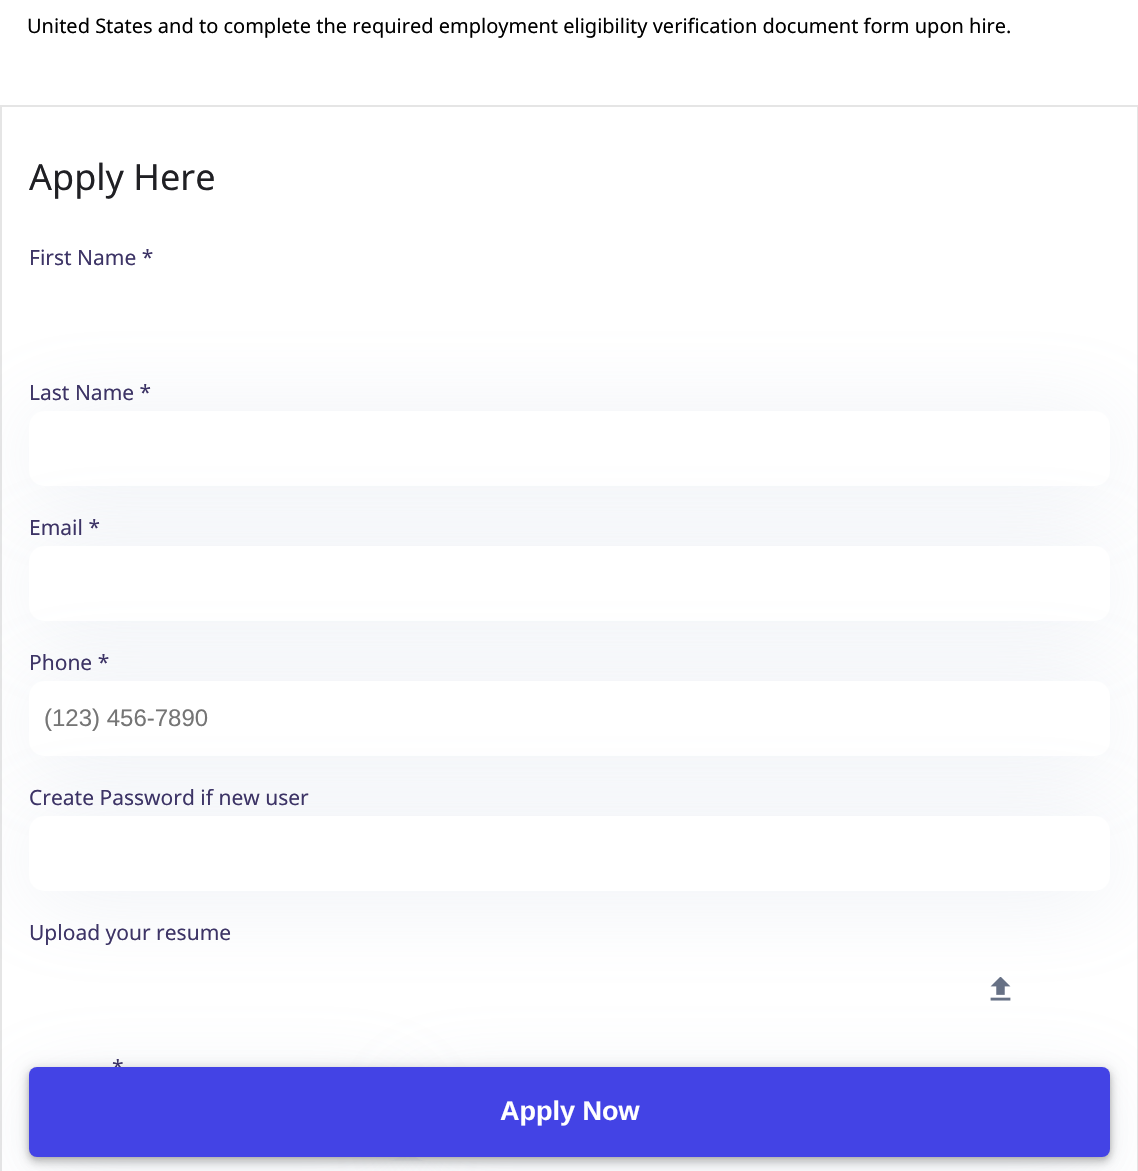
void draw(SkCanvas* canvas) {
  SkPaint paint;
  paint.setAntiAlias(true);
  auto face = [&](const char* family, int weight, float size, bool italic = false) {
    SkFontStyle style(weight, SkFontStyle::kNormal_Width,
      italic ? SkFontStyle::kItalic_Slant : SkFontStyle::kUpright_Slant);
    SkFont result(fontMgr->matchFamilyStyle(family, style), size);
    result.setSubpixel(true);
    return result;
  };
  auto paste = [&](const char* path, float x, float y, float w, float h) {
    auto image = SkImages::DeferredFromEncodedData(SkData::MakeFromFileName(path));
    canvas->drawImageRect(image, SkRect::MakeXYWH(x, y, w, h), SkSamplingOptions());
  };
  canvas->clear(0xffffffff);
  paint.setStroke(true);
  paint.setStrokeWidth(2);
  paint.setColor(0xffe5e5e5);
  canvas->drawRect(SkRect::MakeXYWH(1, 106, 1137, 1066), paint);
  paint.setStroke(false);
  paint.setColor(0x2e99abc6);
  paint.setMaskFilter(SkMaskFilter::MakeBlur(kNormal_SkBlurStyle, 46.5f));
  canvas->drawRoundRect(SkRect::MakeXYWH(29, 417, 1081, 75), 15, 15, paint);
  paint.setMaskFilter(nullptr);
  paint.setColor(0xffffffff);
  canvas->drawRoundRect(SkRect::MakeXYWH(29, 411, 1081, 75), 15, 15, paint);
  paint.setColor(0x2e99abc6);
  paint.setMaskFilter(SkMaskFilter::MakeBlur(kNormal_SkBlurStyle, 46.5f));
  canvas->drawRoundRect(SkRect::MakeXYWH(29, 552, 1081, 75), 15, 15, paint);
  paint.setMaskFilter(nullptr);
  paint.setColor(0xffffffff);
  canvas->drawRoundRect(SkRect::MakeXYWH(29, 546, 1081, 75), 15, 15, paint);
  paint.setColor(0x2e99abc6);
  paint.setMaskFilter(SkMaskFilter::MakeBlur(kNormal_SkBlurStyle, 46.5f));
  canvas->drawRoundRect(SkRect::MakeXYWH(29, 687, 1081, 75), 15, 15, paint);
  paint.setMaskFilter(nullptr);
  paint.setColor(0xffffffff);
  canvas->drawRoundRect(SkRect::MakeXYWH(29, 681, 1081, 75), 15, 15, paint);
  paint.setColor(0x2e99abc6);
  paint.setMaskFilter(SkMaskFilter::MakeBlur(kNormal_SkBlurStyle, 46.5f));
  canvas->drawRoundRect(SkRect::MakeXYWH(29, 822, 1081, 75), 15, 15, paint);
  paint.setMaskFilter(nullptr);
  paint.setColor(0xffffffff);
  canvas->drawRoundRect(SkRect::MakeXYWH(29, 816, 1081, 75), 15, 15, paint);
  paste("img/1.png", 990, 977, 21, 24);
  paint.setColor(0x2e99abc6);
  paint.setMaskFilter(SkMaskFilter::MakeBlur(kNormal_SkBlurStyle, 46.5f));
  canvas->drawRoundRect(SkRect::MakeXYWH(29, 1092, 375, 75), 15, 15, paint);
  paint.setMaskFilter(nullptr);
  paint.setColor(0xffffffff);
  canvas->drawRoundRect(SkRect::MakeXYWH(29, 1086, 375, 75), 15, 15, paint);
  paint.setColor(0x2e99abc6);
  paint.setMaskFilter(SkMaskFilter::MakeBlur(kNormal_SkBlurStyle, 46.5f));
  canvas->drawRoundRect(SkRect::MakeXYWH(411, 1092, 699, 75), 15, 15, paint);
  paint.setMaskFilter(nullptr);
  paint.setColor(0xffffffff);
  canvas->drawRoundRect(SkRect::MakeXYWH(411, 1086, 699, 75), 15, 15, paint);
  paint.setColor(0x1f000000);
  paint.setMaskFilter(SkMaskFilter::MakeBlur(kNormal_SkBlurStyle, 7.5f));
  canvas->drawRoundRect(SkRect::MakeXYWH(29, 1068, 1081, 90), 8, 8, paint);
  paint.setMaskFilter(nullptr);
  paint.setColor(0x24000000);
  paint.setMaskFilter(SkMaskFilter::MakeBlur(kNormal_SkBlurStyle, 4));
  canvas->drawRoundRect(SkRect::MakeXYWH(29, 1073, 1081, 90), 8, 8, paint);
  paint.setMaskFilter(nullptr);
  paint.setColor(0x33000000);
  paint.setMaskFilter(SkMaskFilter::MakeBlur(kNormal_SkBlurStyle, 3));
  canvas->drawRoundRect(SkRect::MakeXYWH(30, 1071, 1079, 87), 6, 6, paint);
  paint.setMaskFilter(nullptr);
  auto f0 = face("Noto Sans", 400, 20);
  paint.setColor(0xff000000);
  canvas->drawString("United States and to complete the required employment eligibility verification document form upon hire.", 27, 33, f0, paint);
  auto f1 = face("Noto Sans", 400, 36);
  paint.setColor(0xff202024);
  canvas->drawString("Apply Here", 29, 190, f1, paint);
  auto f2 = face("Noto Sans", 400, 21);
  paint.setColor(0xff3d3466);
  {
    const struct { const char* s; float x, y; } items[] = {
      {"First Name *", 29, 265},
      {"Last Name *", 29, 400},
      {"Email *", 29, 535},
      {"Phone *", 29, 670},
    };
    for (auto [s, x, y] : items) {
      canvas->drawString(s, x, y, f2, paint);
    }
  }
  auto f3 = face("Liberation Sans", 400, 24);
  paint.setColor(0xff757575);
  canvas->drawString("(123) 456-7890", 44, 726, f3, paint);
  paint.setColor(0xff3d3466);
  {
    const struct { const char* s; float x, y; } items[] = {
      {"Create Password if new user", 29, 805},
      {"Upload your resume", 29, 940},
      {"*", 112, 1075},
    };
    for (auto [s, x, y] : items) {
      canvas->drawString(s, x, y, f2, paint);
    }
  }
  paint.setColor(0xff4343e5);
  canvas->drawRoundRect(SkRect::MakeXYWH(29, 1067, 1081, 90), 8, 8, paint);
  auto f4 = face("Liberation Sans", 700, 27);
  paint.setColor(0xffffffff);
  canvas->drawString("Apply Now", 500, 1120, f4, paint);
}
